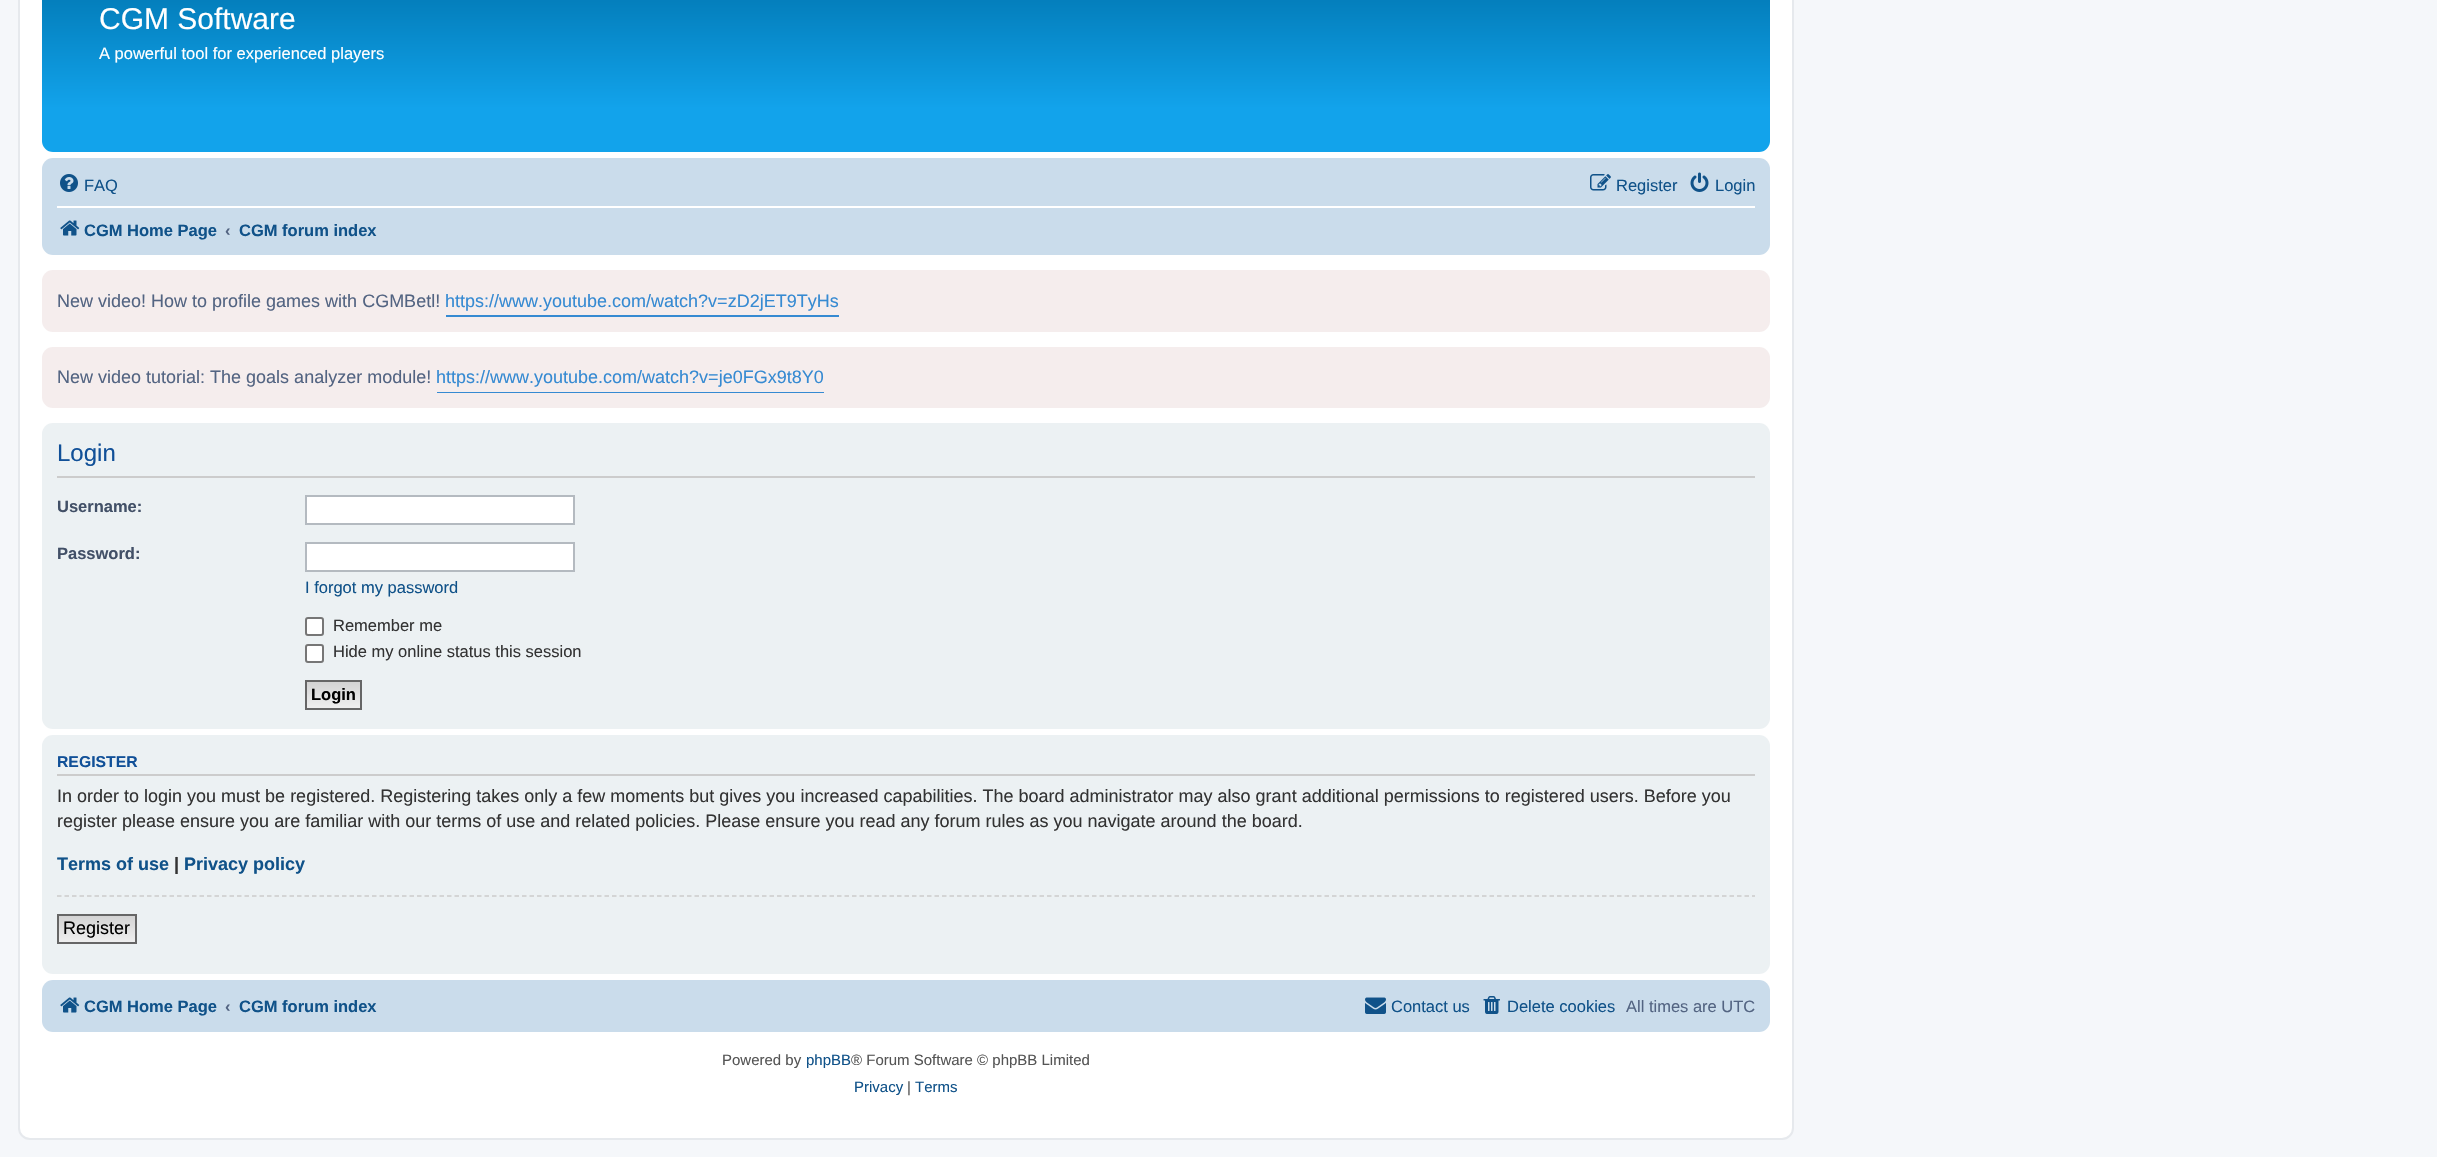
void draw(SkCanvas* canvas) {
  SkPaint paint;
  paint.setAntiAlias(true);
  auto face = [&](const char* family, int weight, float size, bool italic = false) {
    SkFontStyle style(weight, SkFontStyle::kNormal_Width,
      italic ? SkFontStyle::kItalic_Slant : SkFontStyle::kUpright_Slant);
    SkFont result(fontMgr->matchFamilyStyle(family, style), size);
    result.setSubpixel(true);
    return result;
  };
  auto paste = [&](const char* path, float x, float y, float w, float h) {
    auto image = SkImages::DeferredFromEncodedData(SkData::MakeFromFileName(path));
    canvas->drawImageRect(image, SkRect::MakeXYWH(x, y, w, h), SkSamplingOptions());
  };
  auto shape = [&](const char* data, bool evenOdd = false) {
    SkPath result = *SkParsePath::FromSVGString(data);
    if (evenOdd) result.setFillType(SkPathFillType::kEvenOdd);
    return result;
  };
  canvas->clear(0xfff5f7fa);
  paint.setColor(0xffffffff);
  canvas->drawRoundRect(SkRect::MakeXYWH(19, -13, 1774, 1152), 11, 11, paint);
  paint.setStroke(true);
  paint.setStrokeWidth(2);
  paint.setColor(0xffe6e9ed);
  canvas->drawRoundRect(SkRect::MakeXYWH(19, -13, 1774, 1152), 11, 11, paint);
  paint.setStroke(false);
  {
    const SkColor colors[] = {0xff6aceff, 0xff0076b1, 0xff12a3eb, 0xff12a3eb};
    const float stops[] = {0, 0.02f, 0.76f, 1};
    const SkPoint ends[] = {{906, -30}, {906, 152}};
    paint.setShader(SkGradientShader::MakeLinear(ends, colors, stops, 4, SkTileMode::kClamp));
    paint.setAlpha(255);
  }
  canvas->drawRoundRect(SkRect::MakeXYWH(42, -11, 1728, 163), 11, 11, paint);
  paint.setShader(nullptr);
  paint.setColor(0xffcadceb);
  canvas->drawRoundRect(SkRect::MakeXYWH(42, 158, 1728, 97), 11, 11, paint);
  paste("img/1.png", 60, 174, 18, 18);
  paste("img/2.png", 1590, 174, 21, 17);
  paste("img/3.png", 1690, 172, 19, 20);
  paint.setColor(0xffffffff);
  canvas->drawRect(SkRect::MakeXYWH(57, 206, 1698, 2), paint);
  paste("img/4.png", 60, 220, 20, 16);
  paint.setColor(0xfff5eded);
  canvas->drawRoundRect(SkRect::MakeXYWH(42, 270, 1728, 62), 11, 11, paint);
  paint.setColor(0xff368ad2);
  canvas->drawRect(SkRect::MakeXYWH(446, 315, 393, 2), paint);
  paint.setColor(0xfff5eded);
  canvas->drawRoundRect(SkRect::MakeXYWH(42, 347, 1728, 61), 11, 11, paint);
  paint.setColor(0xff368ad2);
  canvas->drawRect(SkRect::MakeXYWH(437, 392, 387, 1), paint);
  paint.setColor(0xffecf1f3);
  canvas->drawRoundRect(SkRect::MakeXYWH(42, 423, 1728, 306), 11, 11, paint);
  paint.setColor(0xffcccccc);
  canvas->drawRect(SkRect::MakeXYWH(57, 476, 1698, 2), paint);
  paint.setColor(0xffffffff);
  canvas->drawRect(SkRect::MakeXYWH(306, 496, 268, 28), paint);
  paint.setStroke(true);
  paint.setColor(0xffb4bac0);
  canvas->drawRect(SkRect::MakeXYWH(306, 496, 268, 28), paint);
  paint.setStroke(false);
  paint.setColor(0xffffffff);
  canvas->drawRect(SkRect::MakeXYWH(306, 543, 268, 28), paint);
  paint.setStroke(true);
  paint.setColor(0xffb4bac0);
  canvas->drawRect(SkRect::MakeXYWH(306, 543, 268, 28), paint);
  paint.setStroke(false);
  paint.setColor(0xffffffff);
  canvas->drawRoundRect(SkRect::MakeXYWH(306, 618, 17, 17), 2, 2, paint);
  paint.setStroke(true);
  paint.setColor(0xff767676);
  canvas->drawRoundRect(SkRect::MakeXYWH(306, 618, 17, 17), 2, 2, paint);
  paint.setStroke(false);
  paint.setColor(0xffffffff);
  canvas->drawRoundRect(SkRect::MakeXYWH(306, 645, 17, 17), 2, 2, paint);
  paint.setStroke(true);
  paint.setColor(0xff767676);
  canvas->drawRoundRect(SkRect::MakeXYWH(306, 645, 17, 17), 2, 2, paint);
  paint.setStroke(false);
  {
    const SkColor colors[] = {0xffd2d2d2, 0xffefefef};
    const float stops[] = {0, 1};
    const SkPoint ends[] = {{333, 681}, {333, 708}};
    paint.setShader(SkGradientShader::MakeLinear(ends, colors, stops, 2, SkTileMode::kClamp));
    paint.setAlpha(255);
  }
  canvas->drawRect(SkRect::MakeXYWH(307, 682, 53, 26), paint);
  paint.setStroke(true);
  paint.setShader(nullptr);
  paint.setColor(0xff666666);
  canvas->drawRect(SkRect::MakeXYWH(306, 681, 55, 28), paint);
  paint.setStroke(false);
  paint.setColor(0xffecf1f3);
  canvas->drawRoundRect(SkRect::MakeXYWH(42, 735, 1728, 239), 11, 11, paint);
  paint.setColor(0xffcccccc);
  canvas->drawRect(SkRect::MakeXYWH(57, 774, 1698, 2), paint);
  paint.setStroke(true);
  paint.setStrokeWidth(1.5f);
  paint.setPathEffect(SkDashPathEffect::Make({{4.5f, 3}}, 0));
  canvas->drawPath(shape("M57 896H1755"), paint);
  paint.setPathEffect(nullptr);
  paint.setStroke(false);
  {
    const SkColor colors[] = {0xffd2d2d2, 0xffefefef};
    const float stops[] = {0, 1};
    const SkPoint ends[] = {{97, 915}, {97, 942}};
    paint.setShader(SkGradientShader::MakeLinear(ends, colors, stops, 2, SkTileMode::kClamp));
    paint.setAlpha(255);
  }
  canvas->drawRect(SkRect::MakeXYWH(59, 916, 76, 26), paint);
  paint.setStroke(true);
  paint.setStrokeWidth(2);
  paint.setShader(nullptr);
  paint.setColor(0xff666666);
  canvas->drawRect(SkRect::MakeXYWH(58, 915, 78, 28), paint);
  paint.setStroke(false);
  paint.setColor(0xffcadceb);
  canvas->drawRoundRect(SkRect::MakeXYWH(42, 980, 1728, 52), 11, 11, paint);
  paste("img/4.png", 60, 997, 20, 16);
  paste("img/5.png", 1365, 997, 21, 17);
  paste("img/6.png", 1483, 996, 17, 18);
  auto f0 = face("Liberation Sans", 400, 30);
  paint.setColor(0xffffffff);
  canvas->drawString("CGM Software", 99, 29, f0, paint);
  auto f1 = face("Liberation Sans", 400, 16.5f);
  canvas->drawString("A powerful tool for experienced players", 99, 59, f1, paint);
  paint.setColor(0xff105289);
  {
    const struct { const char* s; float x, y; } items[] = {
      {"FAQ", 84, 191},
      {"Register", 1616, 191},
      {"Login", 1715, 191},
    };
    for (auto [s, x, y] : items) {
      canvas->drawString(s, x, y, f1, paint);
    }
  }
  auto f2 = face("Liberation Sans", 700, 16.5f);
  canvas->drawString("CGM Home Page", 84, 236, f2, paint);
  paint.setColor(0xff536482);
  canvas->drawString("‹", 225, 236, f2, paint);
  paint.setColor(0xff105289);
  canvas->drawString("CGM forum index", 239, 236, f2, paint);
  auto f3 = face("Liberation Sans", 400, 18);
  paint.setColor(0xff536482);
  canvas->drawString("New video! How to profile games with CGMBetl!", 57, 307, f3, paint);
  paint.setColor(0xff368ad2);
  canvas->drawString("https://www.youtube.com/watch?v=zD2jET9TyHs", 445, 307, f3, paint);
  paint.setColor(0xff536482);
  canvas->drawString("New video tutorial: The goals analyzer module!", 57, 383, f3, paint);
  paint.setColor(0xff368ad2);
  canvas->drawString("https://www.youtube.com/watch?v=je0FGx9t8Y0", 436, 383, f3, paint);
  auto f4 = face("Liberation Sans", 400, 24);
  paint.setColor(0xff115098);
  canvas->drawString("Login", 57, 461, f4, paint);
  paint.setColor(0xff425067);
  canvas->drawString("Username:", 57, 512, f2, paint);
  canvas->drawString("Password:", 57, 559, f2, paint);
  paint.setColor(0xff105289);
  canvas->drawString("I forgot my password", 305, 593, f1, paint);
  paint.setColor(0xff333333);
  canvas->drawString("Remember me", 333, 631, f1, paint);
  canvas->drawString("Hide my online status this session", 333, 657, f1, paint);
  paint.setColor(0xff000000);
  canvas->drawString("Login", 311, 700, f2, paint);
  auto f5 = face("Liberation Sans", 700, 15.75f);
  paint.setColor(0xff115098);
  canvas->drawString("REGISTER", 57, 767, f5, paint);
  paint.setColor(0xff333333);
  canvas->drawString("In order to login you must be registered. Registering takes only a few moments but gives you increased capabilities. The board administrator may also grant additional permissions to registered users. Before you", 57, 802, f3, paint);
  canvas->drawString("register please ensure you are familiar with our terms of use and related policies. Please ensure you read any forum rules as you navigate around the board.", 57, 827, f3, paint);
  auto f6 = face("Liberation Sans", 700, 18);
  paint.setColor(0xff105289);
  canvas->drawString("Terms of use", 57, 870, f6, paint);
  paint.setColor(0xff333333);
  canvas->drawString("|", 174, 870, f6, paint);
  paint.setColor(0xff105289);
  canvas->drawString("Privacy policy", 184, 870, f6, paint);
  paint.setColor(0xff000000);
  canvas->drawString("Register", 63, 934, f3, paint);
  paint.setColor(0xff105289);
  canvas->drawString("CGM Home Page", 84, 1012, f2, paint);
  paint.setColor(0xff536482);
  canvas->drawString("‹", 225, 1012, f2, paint);
  paint.setColor(0xff105289);
  canvas->drawString("CGM forum index", 239, 1012, f2, paint);
  canvas->drawString("Contact us", 1391, 1012, f1, paint);
  canvas->drawString("Delete cookies", 1507, 1012, f1, paint);
  paint.setColor(0xff536482);
  canvas->drawString("All times are UTC", 1626, 1012, f1, paint);
  auto f7 = face("Liberation Sans", 400, 15);
  paint.setColor(0xff555555);
  canvas->drawString("Powered by", 722, 1065, f7, paint);
  paint.setColor(0xff105289);
  canvas->drawString("phpBB", 806, 1065, f7, paint);
  paint.setColor(0xff555555);
  canvas->drawString("® Forum Software © phpBB Limited", 851, 1065, f7, paint);
  paint.setColor(0xff105289);
  canvas->drawString("Privacy", 854, 1092, f7, paint);
  paint.setColor(0xff555555);
  canvas->drawString("|", 907, 1092, f7, paint);
  paint.setColor(0xff105289);
  canvas->drawString("Terms", 915, 1092, f7, paint);
}
